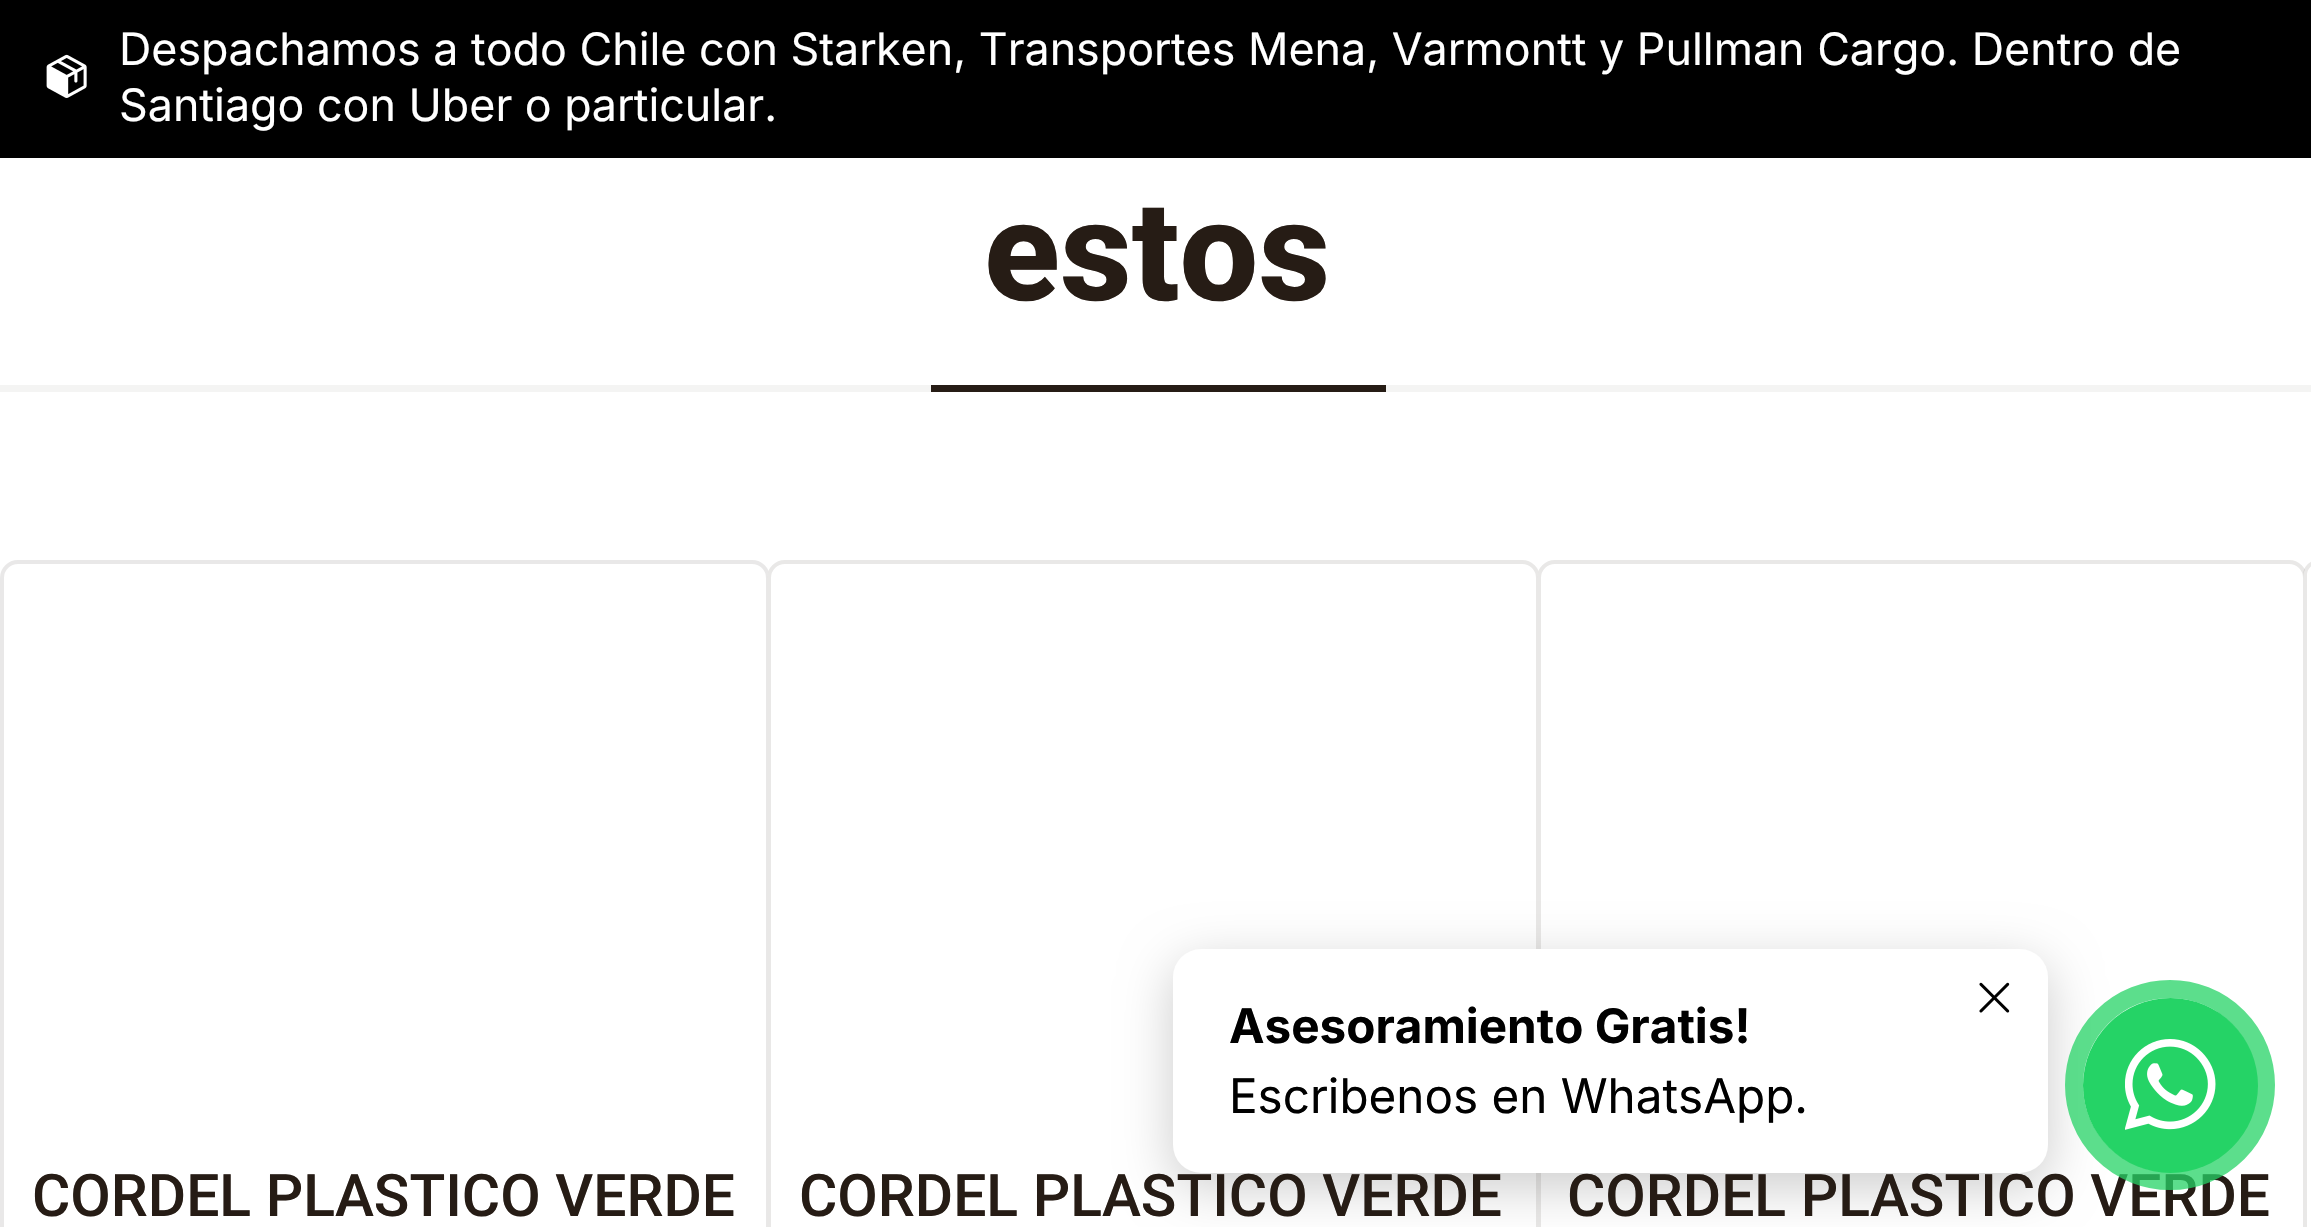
void draw(SkCanvas* canvas) {
  SkPaint paint;
  paint.setAntiAlias(true);
  auto face = [&](const char* family, int weight, float size, bool italic = false) {
    SkFontStyle style(weight, SkFontStyle::kNormal_Width,
      italic ? SkFontStyle::kItalic_Slant : SkFontStyle::kUpright_Slant);
    SkFont result(fontMgr->matchFamilyStyle(family, style), size);
    result.setSubpixel(true);
    return result;
  };
  auto paste = [&](const char* path, float x, float y, float w, float h) {
    auto image = SkImages::DeferredFromEncodedData(SkData::MakeFromFileName(path));
    canvas->drawImageRect(image, SkRect::MakeXYWH(x, y, w, h), SkSamplingOptions());
  };
  auto shape = [&](const char* data, bool evenOdd = false) {
    SkPath result = *SkParsePath::FromSVGString(data);
    if (evenOdd) result.setFillType(SkPathFillType::kEvenOdd);
    return result;
  };
  canvas->clear(0xffffffff);
  paint.setColor(0xfff4f4f3);
  canvas->drawRect(SkRect::MakeXYWH(0, 385, 2311, 7), paint);
  paint.setColor(0xff000000);
  canvas->drawRect(SkRect::MakeXYWH(0, 0, 2311, 158), paint);
  paste("img/1.png", 46, 54, 41, 44);
  paint.setColor(0xff261c15);
  canvas->drawRect(SkRect::MakeXYWH(931, 385, 455, 7), paint);
  paint.setStroke(true);
  paint.setStrokeWidth(4);
  paint.setColor(0xffe9e8e8);
  canvas->drawRoundRect(SkRect::MakeXYWH(2, 562, 766, 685), 16, 16, paint);
  paint.setStroke(false);
  paint.setColor(0xffffffff);
  canvas->drawRoundRect(SkRect::MakeXYWH(767, 560, 773, 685), 18, 18, paint);
  paint.setStroke(true);
  paint.setColor(0x1a261c15);
  canvas->drawRoundRect(SkRect::MakeXYWH(769, 562, 769, 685), 16, 16, paint);
  paint.setStroke(false);
  paint.setColor(0xffffffff);
  canvas->drawRoundRect(SkRect::MakeXYWH(1537, 560, 770, 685), 18, 18, paint);
  paint.setStroke(true);
  paint.setColor(0x1a261c15);
  canvas->drawRoundRect(SkRect::MakeXYWH(1539, 562, 766, 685), 16, 16, paint);
  paint.setStroke(false);
  paint.setColor(0xffffffff);
  canvas->drawPath(shape("M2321 560H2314V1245H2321C2311 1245 2303 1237 2303 1227V578C2303 568 2311 560 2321 560Z"), paint);
  paint.setStroke(true);
  paint.setColor(0x1a261c15);
  canvas->drawRoundRect(SkRect::MakeXYWH(2305, 562, 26, 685), 16, 16, paint);
  paint.setStroke(false);
  paint.setColor(0x33000000);
  paint.setMaskFilter(SkMaskFilter::MakeBlur(kNormal_SkBlurStyle, 26));
  canvas->drawRoundRect(SkRect::MakeXYWH(1173, 963, 875, 224), 28, 28, paint);
  paint.setMaskFilter(nullptr);
  paint.setColor(0xffffffff);
  canvas->drawRoundRect(SkRect::MakeXYWH(1173, 949, 875, 224), 28, 28, paint);
  paste("img/2.png", 1979, 982, 31, 31);
  paint.setColor(0xff25d366);
  canvas->drawCircle(2170.5f, 1085.5f, 87.5f, paint);
  paste("img/3.png", 2125, 1039, 91, 91);
  auto f0 = face("Inter", 400, 44.8f);
  paint.setColor(0xffffffff);
  canvas->drawString("Despachamos a todo Chile con Starken, Transportes Mena, Varmontt y Pullman Cargo. Dentro de", 119, 65, f0, paint);
  canvas->drawString("Santiago con Uber o particular.", 119, 121, f0, paint);
  auto f1 = face("Roboto", 800, 140);
  paint.setColor(0xff261c15);
  canvas->drawString("estos", 984, 300, f1, paint);
  auto f2 = face("Roboto", 500, 58.75f);
  {
    const struct { const char* s; float x, y; } items[] = {
      {"CORDEL PLASTICO VERDE", 32, 1216},
      {"CORDEL PLASTICO VERDE", 799, 1216},
      {"CORDEL PLASTICO VERDE", 1567, 1216},
    };
    for (auto [s, x, y] : items) {
      canvas->drawString(s, x, y, f2, paint);
    }
  }
  auto f3 = face("Inter", 700, 47.6f);
  paint.setColor(0xff000000);
  canvas->drawString("Asesoramiento Gratis!", 1229, 1043, f3, paint);
  auto f4 = face("Inter", 400, 47.6f);
  canvas->drawString("Escribenos en WhatsApp.", 1229, 1113, f4, paint);
  paint.setStroke(true);
  paint.setStrokeWidth(18);
  paint.setColor(0xbf25d366);
  canvas->drawCircle(2170, 1085, 96, paint);
}
